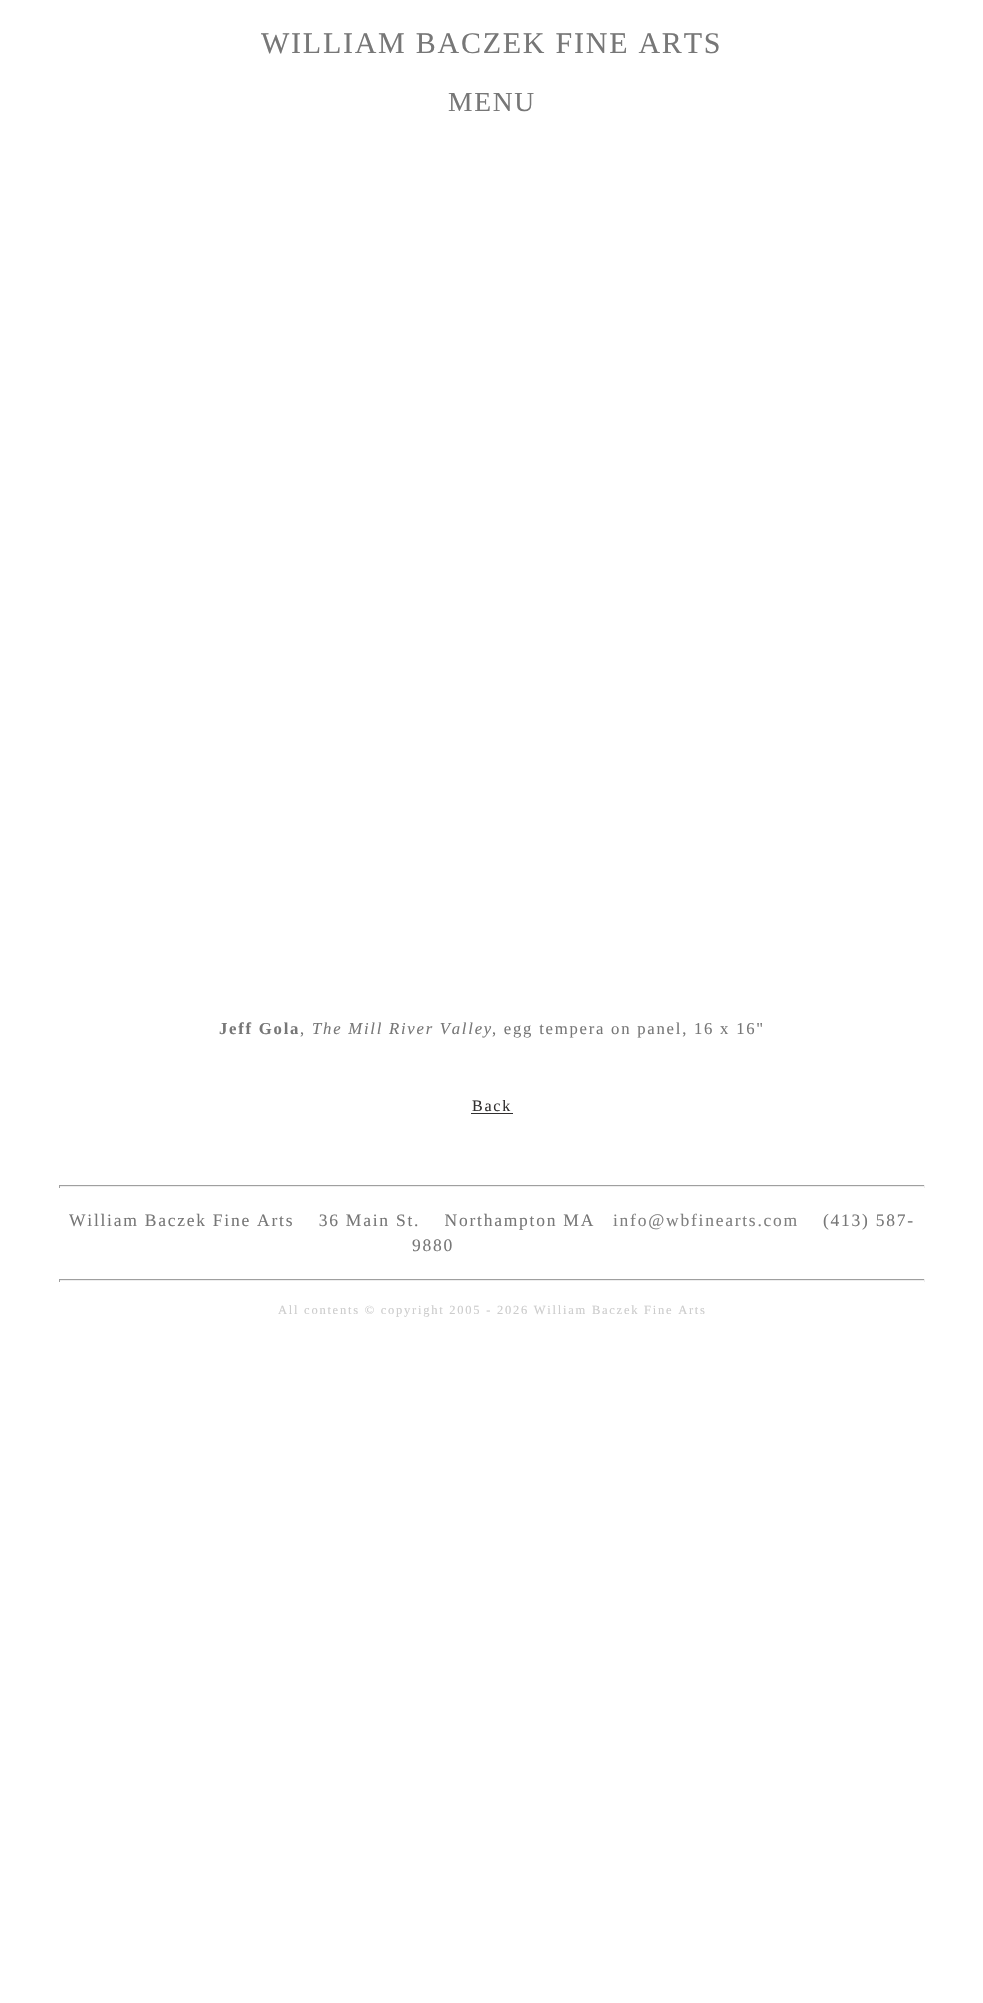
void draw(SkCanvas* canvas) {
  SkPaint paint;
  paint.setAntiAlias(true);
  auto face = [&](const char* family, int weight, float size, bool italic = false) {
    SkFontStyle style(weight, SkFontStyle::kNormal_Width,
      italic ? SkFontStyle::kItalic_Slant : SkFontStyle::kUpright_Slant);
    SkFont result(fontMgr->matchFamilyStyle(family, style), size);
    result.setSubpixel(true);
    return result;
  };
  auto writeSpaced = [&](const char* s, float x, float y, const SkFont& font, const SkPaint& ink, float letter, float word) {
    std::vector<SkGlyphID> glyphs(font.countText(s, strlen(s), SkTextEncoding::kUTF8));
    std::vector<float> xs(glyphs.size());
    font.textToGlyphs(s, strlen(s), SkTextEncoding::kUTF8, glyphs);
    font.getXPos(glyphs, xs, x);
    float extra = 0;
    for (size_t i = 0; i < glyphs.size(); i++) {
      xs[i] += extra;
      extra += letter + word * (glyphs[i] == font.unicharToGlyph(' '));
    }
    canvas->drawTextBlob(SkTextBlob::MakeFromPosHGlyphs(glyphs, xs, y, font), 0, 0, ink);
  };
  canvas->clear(0xffffffff);
  {
    const struct { float x, y, w, h; SkColor color; } items[] = {
      {471, 1113, 42, 1, 0xff312f2f},
      {59, 1185, 866, 1, 0xff9f9f9f},
      {924, 1185, 1, 3, 0xffeeeeee},
      {59, 1186, 866, 1, 0xffeeeeee},
      {59, 1185, 1, 3, 0xff9f9f9f},
      {59, 1279, 866, 1, 0xff9f9f9f},
      {924, 1279, 1, 3, 0xffeeeeee},
      {59, 1280, 866, 1, 0xffeeeeee},
      {59, 1279, 1, 3, 0xff9f9f9f},
    };
    for (auto [x, y, w, h, color] : items) {
      paint.setColor(color);
      canvas->drawRect(SkRect::MakeXYWH(x, y, w, h), paint);
    }
  }
  auto f0 = face("Liberation Serif", 400, 30);
  paint.setColor(0xff777777);
  writeSpaced("WILLIAM BACZEK FINE ARTS", 261, 53, f0, paint, 1.75f, 0);
  auto f1 = face("Liberation Serif", 400, 27.5f);
  writeSpaced("MENU", 448, 111, f1, paint, 1.75f, 0);
  auto f2 = face("Liberation Serif", 700, 16.7f);
  writeSpaced("Jeff Gola", 219, 1034, f2, paint, 1.75f, 0);
  auto f3 = face("Liberation Serif", 400, 16.7f);
  writeSpaced(",", 300, 1034, f3, paint, 1.75f, 0);
  auto f4 = face("Liberation Serif", 400, 16.7f, true);
  writeSpaced("The Mill River Valley", 312, 1034, f4, paint, 1.75f, 0);
  writeSpaced(", egg tempera on panel, 16 x 16\"", 492, 1034, f3, paint, 1.75f, 0);
  auto f5 = face("Liberation Serif", 400, 16);
  paint.setColor(0xff312f2f);
  writeSpaced("Back", 472, 1111, f5, paint, 1.75f, 0);
  auto f6 = face("Liberation Serif", 400, 17.5f);
  paint.setColor(0xff777777);
  writeSpaced("William Baczek Fine Arts    36 Main St.    Northampton MA", 69, 1226, f6, paint, 1.75f, 0);
  paint.setColor(0xff808080);
  writeSpaced("info@wbfinearts.com", 613, 1226, f6, paint, 1.75f, 0);
  paint.setColor(0xff777777);
  writeSpaced("(413) 587-", 823, 1226, f6, paint, 1.75f, 0);
  writeSpaced("9880", 412, 1251, f6, paint, 1.75f, 0);
  auto f7 = face("Liberation Serif", 400, 12.5f);
  paint.setColor(0xffcccccc);
  writeSpaced("All contents © copyright 2005 - 2026 William Baczek Fine Arts", 278, 1314, f7, paint, 1.75f, 0);
}
